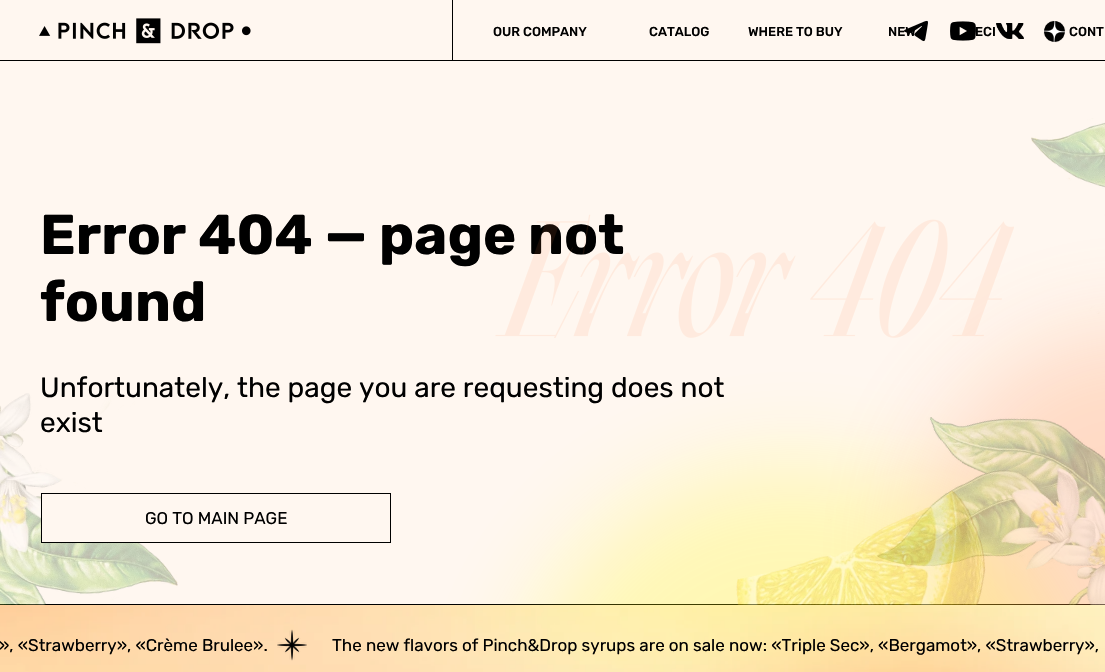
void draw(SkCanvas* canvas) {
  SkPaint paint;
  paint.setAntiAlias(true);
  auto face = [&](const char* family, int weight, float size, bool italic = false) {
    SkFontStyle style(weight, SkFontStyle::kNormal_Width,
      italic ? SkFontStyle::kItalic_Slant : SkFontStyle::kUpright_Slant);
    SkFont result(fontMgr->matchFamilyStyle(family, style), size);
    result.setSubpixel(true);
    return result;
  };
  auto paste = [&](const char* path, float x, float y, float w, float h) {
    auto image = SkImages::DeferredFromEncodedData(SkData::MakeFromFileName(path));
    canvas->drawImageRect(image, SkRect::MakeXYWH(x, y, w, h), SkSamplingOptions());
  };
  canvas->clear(0xffffffff);
  paint.setColor(0xfffff7f0);
  canvas->drawRect(SkRect::MakeXYWH(0, 0, 1105, 604), paint);
  paste("img/1.png", 39, 18, 212, 26);
  paint.setColor(0xff000000);
  canvas->drawRect(SkRect::MakeXYWH(452, 0, 1, 60), paint);
  paste("img/3.png", 950, 21, 26, 20);
  paste("img/4.png", 996, 23, 28, 16);
  paste("img/5.png", 1043, 20, 23, 23);
  canvas->drawRect(SkRect::MakeXYWH(0, 60, 1105, 1), paint);
  canvas->drawRect(SkRect::MakeXYWH(0, 604, 1105, 1), paint);
  paste("img/11.png", 0, 605, 1105, 67);
  canvas->save();
  canvas->clipRect(SkRect::MakeXYWH(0, 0, 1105, 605));
  paint.setColor(0x40ff8243);
  paint.setMaskFilter(SkMaskFilter::MakeBlur(kNormal_SkBlurStyle, 50));
  canvas->drawRoundRect(SkRect::MakeXYWH(916, 329, 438, 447), 219, 219, paint);
  paint.setMaskFilter(nullptr);
  canvas->restore();
  paste("img/6.png", 1031, 118, 74, 196);
  paste("img/10.png", 876, 417, 229, 188);
  canvas->save();
  canvas->clipRect(SkRect::MakeXYWH(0, 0, 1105, 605));
  paint.setColor(0x40fff705);
  paint.setMaskFilter(SkMaskFilter::MakeBlur(kNormal_SkBlurStyle, 50));
  canvas->drawRoundRect(SkRect::MakeXYWH(511, 465, 566, 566), 283, 283, paint);
  paint.setMaskFilter(nullptr);
  canvas->restore();
  paste("img/8.png", 0, 393, 178, 212);
  paint.setColor(0xfffff7f0);
  canvas->drawRect(SkRect::MakeXYWH(42, 494, 102, 48), paint);
  paint.setStroke(true);
  paint.setStrokeWidth(1);
  paint.setColor(0xff000000);
  canvas->drawRect(SkRect::MakeXYWH(41.5f, 493.5f, 349, 49), paint);
  paste("img/9.png", 736, 490, 250, 115);
  paste("img/12.png", 277, 629, 30, 32);
  auto f0 = face("Rubik", 500, 13);
  paint.setStroke(false);
  {
    const struct { const char* s; float x, y; } items[] = {
      {"OUR COMPANY", 493, 36},
      {"CATALOG", 649, 36},
      {"WHERE TO BUY", 748, 36},
      {"NEW", 888, 36},
    };
    for (auto [s, x, y] : items) {
      canvas->drawString(s, x, y, f0, paint);
    }
  }
  paste("img/2.png", 904, 20, 24, 22);
  canvas->drawString("ECI", 975, 36, f0, paint);
  canvas->drawString("CONT", 1069, 36, f0, paint);
  auto f1 = face("Rubik", 700, 56);
  canvas->drawString("Error 404 — page not", 40, 254, f1, paint);
  canvas->drawString("found", 40, 321, f1, paint);
  paste("img/7.png", 495, 214, 519, 124);
  auto f2 = face("Rubik", 400, 28);
  canvas->drawString("Unfortunately, the page you are requesting does not", 40, 397, f2, paint);
  canvas->drawString("exist", 40, 432, f2, paint);
  auto f3 = face("Rubik", 400, 17);
  {
    const struct { const char* s; float x, y; } items[] = {
      {"GO TO MAIN PAGE", 145, 524},
      {"», «Strawberry», «Crème Brulee».", -1, 651},
      {"The new flavors of Pinch&Drop syrups are on sale now: «Triple Sec», «Bergamot», «Strawberry»,", 332, 651},
    };
    for (auto [s, x, y] : items) {
      canvas->drawString(s, x, y, f3, paint);
    }
  }
}
